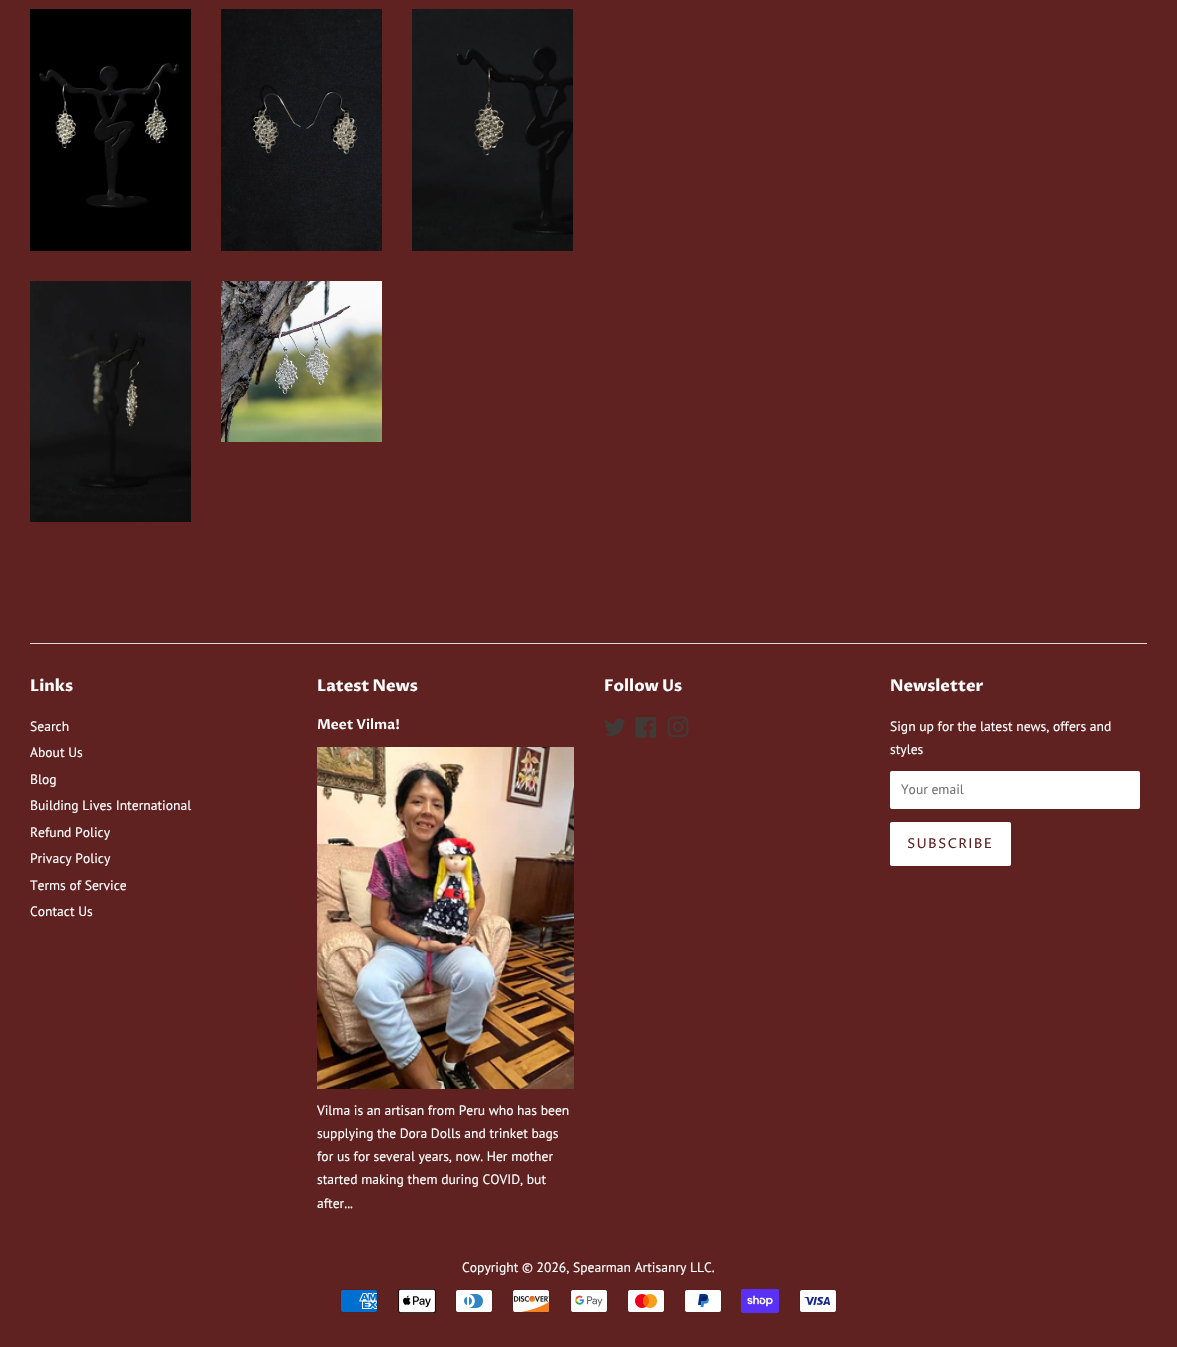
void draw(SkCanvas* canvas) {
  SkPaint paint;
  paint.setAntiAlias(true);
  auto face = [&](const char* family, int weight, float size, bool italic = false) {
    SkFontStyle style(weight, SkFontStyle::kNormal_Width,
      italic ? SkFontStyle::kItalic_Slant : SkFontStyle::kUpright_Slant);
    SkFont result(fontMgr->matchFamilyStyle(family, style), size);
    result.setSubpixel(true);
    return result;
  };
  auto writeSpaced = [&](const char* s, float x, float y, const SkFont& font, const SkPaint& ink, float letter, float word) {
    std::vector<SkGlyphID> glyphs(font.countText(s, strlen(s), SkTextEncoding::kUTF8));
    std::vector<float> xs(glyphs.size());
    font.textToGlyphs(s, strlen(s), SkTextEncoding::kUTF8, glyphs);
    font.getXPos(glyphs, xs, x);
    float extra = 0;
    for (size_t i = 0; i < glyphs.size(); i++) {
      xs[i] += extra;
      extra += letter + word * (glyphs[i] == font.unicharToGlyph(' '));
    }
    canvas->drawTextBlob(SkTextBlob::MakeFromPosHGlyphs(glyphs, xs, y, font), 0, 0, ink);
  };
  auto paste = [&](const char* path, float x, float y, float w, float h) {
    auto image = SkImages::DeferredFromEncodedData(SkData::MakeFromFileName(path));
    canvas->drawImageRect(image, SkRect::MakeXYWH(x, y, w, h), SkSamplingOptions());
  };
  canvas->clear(0xff602121);
  paste("img/1.png", 30, 9, 161, 242);
  paste("img/2.png", 221, 9, 161, 242);
  paste("img/3.png", 412, 9, 161, 242);
  paste("img/4.png", 30, 281, 161, 241);
  paste("img/5.png", 221, 281, 161, 161);
  paint.setColor(0xffdddddd);
  canvas->drawRect(SkRect::MakeXYWH(30, 643, 1117, 1), paint);
  paste("img/6.png", 317, 747, 257, 342);
  paste("img/7.png", 605, 718, 20, 18);
  paste("img/8.png", 635, 717, 21, 21);
  paste("img/9.png", 667, 716, 22, 22);
  paint.setColor(0xffffffff);
  canvas->drawRoundRect(SkRect::MakeXYWH(890, 771, 250, 38), 2, 2, paint);
  paint.setStroke(true);
  paint.setStrokeWidth(1);
  paint.setColor(0x26ffffff);
  canvas->drawRoundRect(SkRect::MakeXYWH(890.5f, 771.5f, 249, 37), 1.5f, 1.5f, paint);
  paint.setStroke(false);
  paint.setColor(0xffffffff);
  canvas->drawRoundRect(SkRect::MakeXYWH(890, 822, 121, 44), 2, 2, paint);
  paste("img/10.png", 340, 1289, 38, 24);
  paste("img/11.png", 398, 1289, 38, 24);
  paste("img/12.png", 455, 1289, 38, 24);
  paste("img/13.png", 512, 1289, 38, 24);
  paste("img/14.png", 570, 1289, 38, 24);
  paste("img/15.png", 627, 1289, 38, 24);
  paste("img/16.png", 684, 1289, 38, 24);
  paste("img/17.png", 741, 1289, 38, 24);
  paste("img/18.png", 799, 1289, 38, 24);
  auto f0 = face("Proza Libre", 700, 16);
  canvas->drawString("Links", 30, 691, f0, paint);
  auto f1 = face("PT Sans", 400, 13.6f);
  {
    const struct { const char* s; float x, y; } items[] = {
      {"Search", 30, 731},
      {"About Us", 30, 757},
      {"Blog", 30, 784},
      {"Building Lives International", 30, 810},
      {"Refund Policy", 30, 837},
      {"Privacy Policy", 30, 863},
      {"Terms of Service", 30, 890},
      {"Contact Us", 30, 916},
    };
    for (auto [s, x, y] : items) {
      canvas->drawString(s, x, y, f1, paint);
    }
  }
  canvas->drawString("Latest News", 317, 691, f0, paint);
  auto f2 = face("Proza Libre", 600, 13.6f);
  canvas->drawString("Meet Vilma!", 317, 729, f2, paint);
  {
    const struct { const char* s; float x, y; } items[] = {
      {"Vilma is an artisan from Peru who has been", 317, 1115},
      {"supplying the Dora Dolls and trinket bags", 317, 1138},
      {"for us for several years, now. Her mother", 317, 1161},
      {"started making them during COVID, but", 317, 1184},
      {"after...", 317, 1208},
    };
    for (auto [s, x, y] : items) {
      canvas->drawString(s, x, y, f1, paint);
    }
  }
  canvas->drawString("Follow Us", 604, 691, f0, paint);
  canvas->drawString("Newsletter", 890, 691, f0, paint);
  canvas->drawString("Sign up for the latest news, offers and", 890, 731, f1, paint);
  canvas->drawString("styles", 890, 754, f1, paint);
  paint.setColor(0xff757575);
  canvas->drawString("Your email", 901, 794, f1, paint);
  auto f3 = face("Proza Libre", 400, 13.6f);
  paint.setColor(0xff602121);
  writeSpaced("SUBSCRIBE", 907, 848, f3, paint, 1.25f, 0);
  paint.setColor(0xffffffff);
  canvas->drawString("Copyright © 2026, Spearman Artisanry LLC.", 462, 1272, f1, paint);
}
